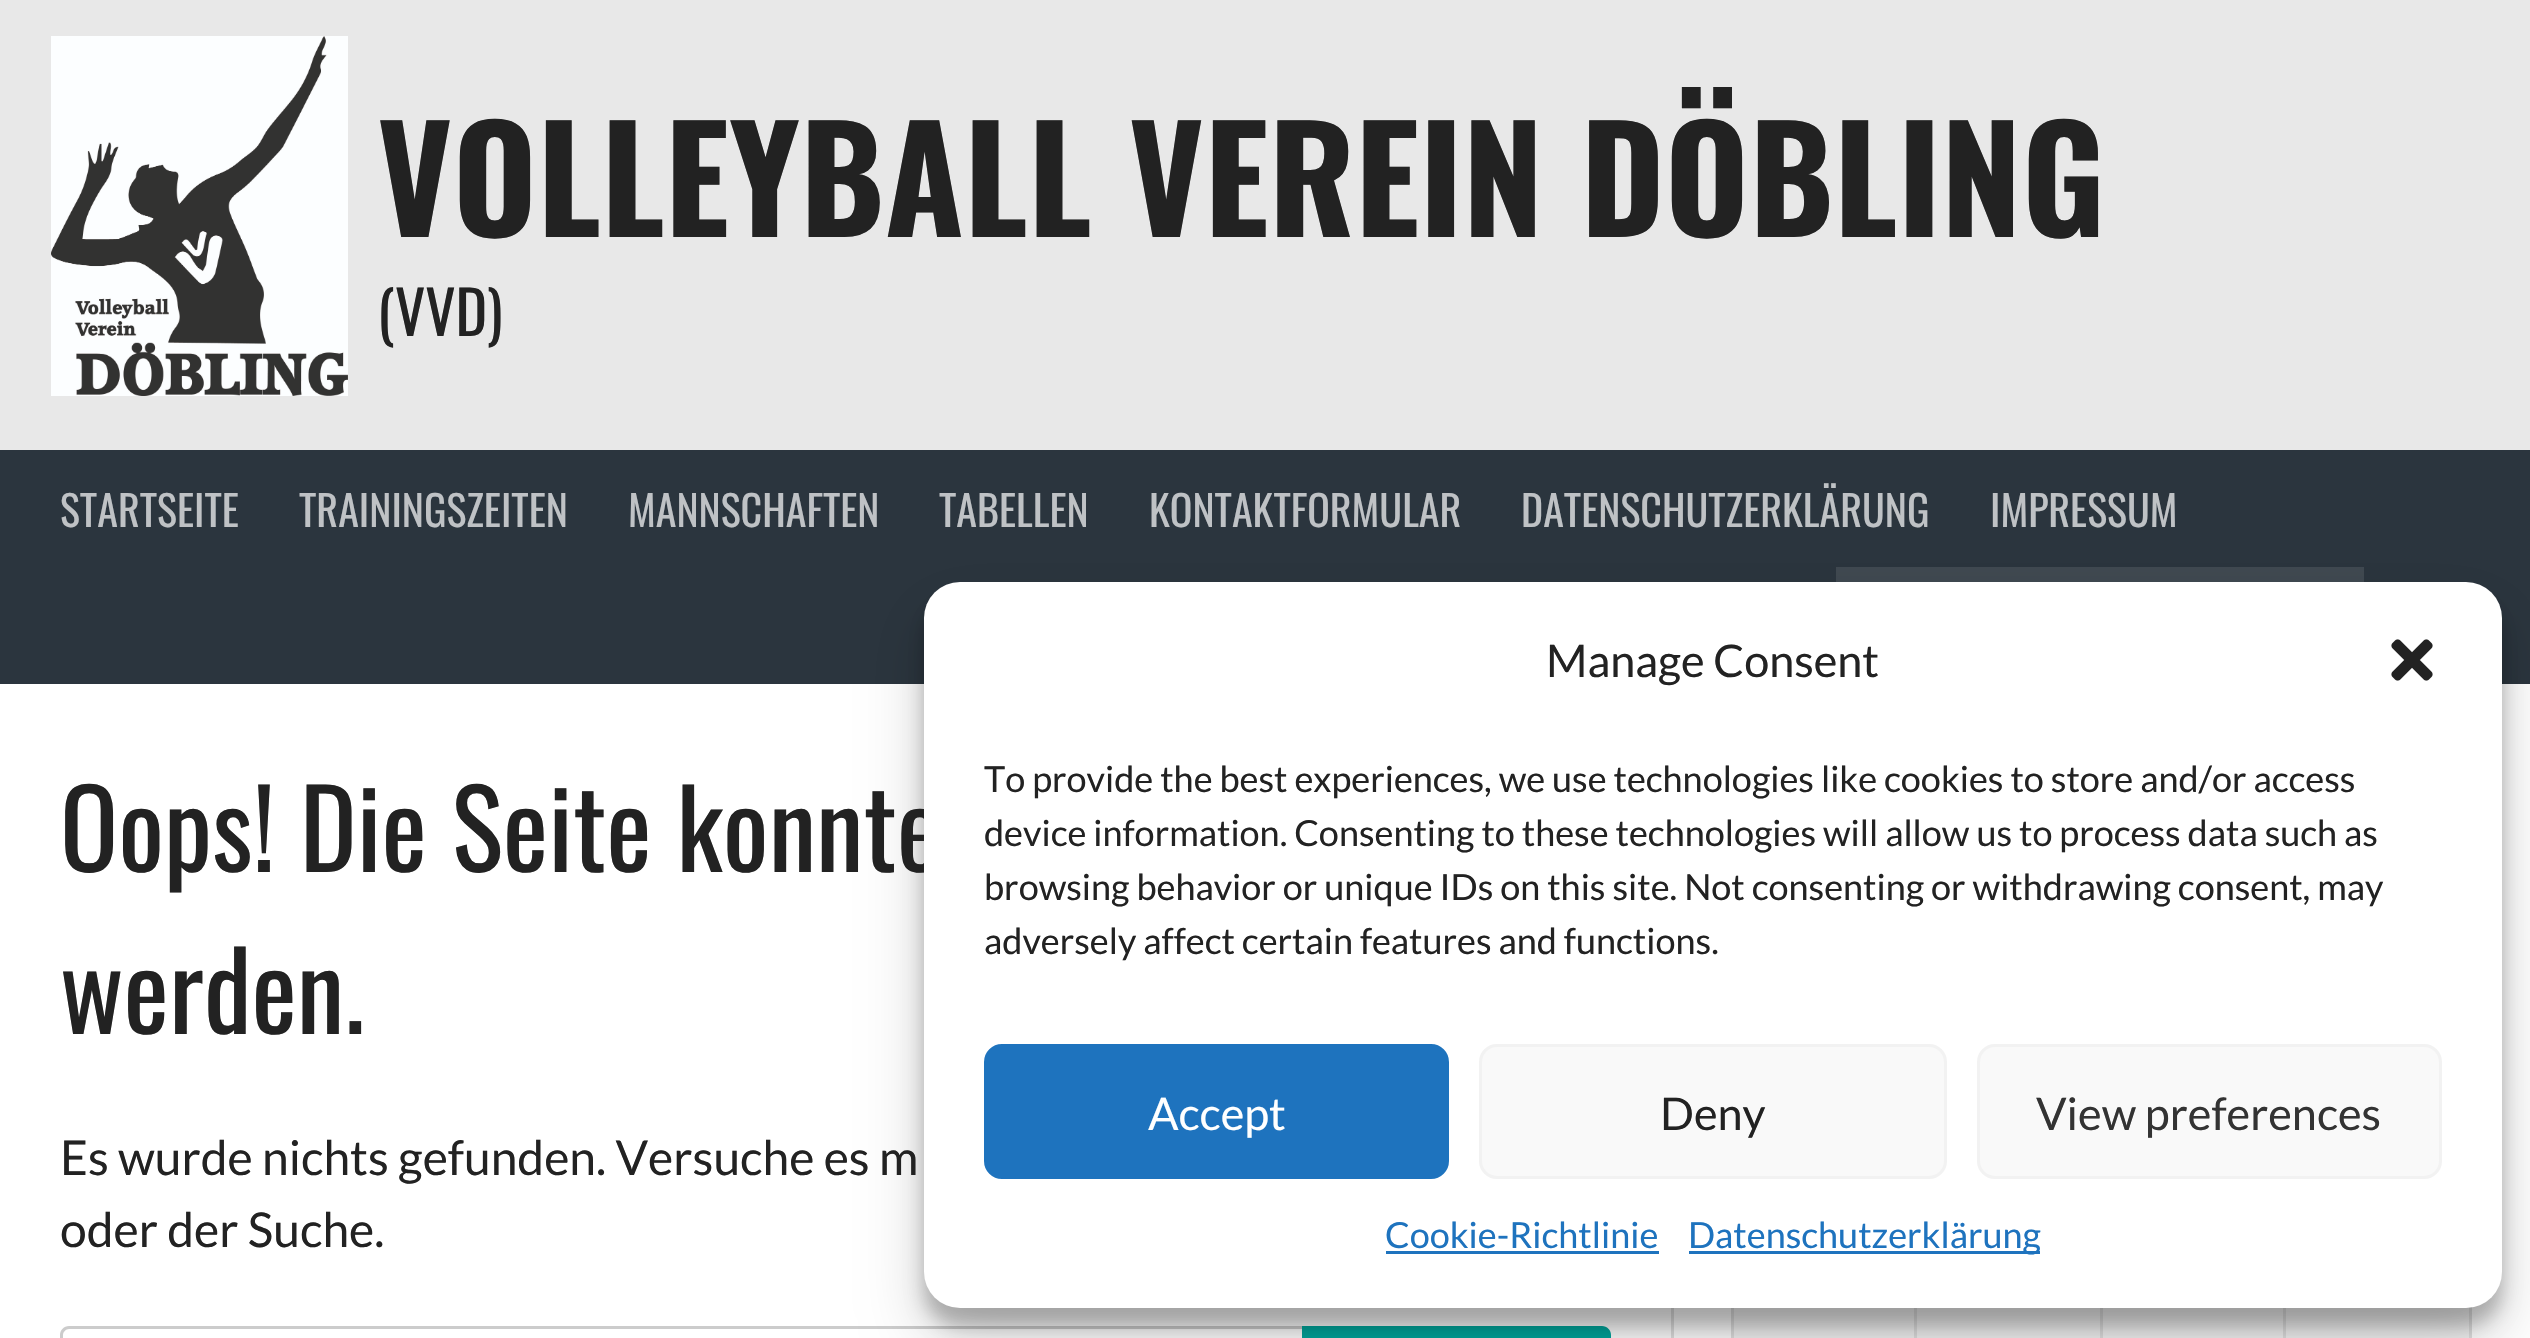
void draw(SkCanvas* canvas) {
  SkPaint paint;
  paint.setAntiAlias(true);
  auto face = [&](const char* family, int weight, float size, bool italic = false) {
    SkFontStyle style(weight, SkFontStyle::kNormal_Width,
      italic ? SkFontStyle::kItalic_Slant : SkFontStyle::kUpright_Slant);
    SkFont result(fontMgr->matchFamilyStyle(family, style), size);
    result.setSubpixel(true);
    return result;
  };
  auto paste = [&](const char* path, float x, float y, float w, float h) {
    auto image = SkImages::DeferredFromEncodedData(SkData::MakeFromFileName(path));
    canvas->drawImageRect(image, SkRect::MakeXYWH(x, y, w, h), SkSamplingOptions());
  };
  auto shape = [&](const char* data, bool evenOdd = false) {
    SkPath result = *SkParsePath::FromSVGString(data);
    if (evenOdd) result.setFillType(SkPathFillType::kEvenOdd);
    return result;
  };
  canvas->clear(0xffe8e8e8);
  paste("img/1.png", 51, 36, 297, 360);
  {
    const struct { float x, y, w, h; SkColor color; } items[] = {
      {0, 450, 2530, 234, 0xff2b353e},
      {1836, 567, 528, 15, 0xff404951},
      {0, 684, 2530, 654, 0xffffffff},
      {1671, 1308, 3, 30, 0xffe0e0e0},
    };
    for (auto [x, y, w, h, color] : items) {
      paint.setColor(color);
      canvas->drawRect(SkRect::MakeXYWH(x, y, w, h), paint);
    }
  }
  paint.setColor(0xffcccccc);
  canvas->drawPath(shape("M69 1326H1302V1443H69C64 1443 60 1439 60 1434V1335C60 1330 64 1326 69 1326ZM69 1329H1302V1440H69C66 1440 63 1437 63 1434V1335C63 1332 66 1329 69 1329Z", true), paint);
  paint.setColor(0xff00a69c);
  canvas->drawPath(shape("M1302 1326H1602C1607 1326 1611 1330 1611 1335V1338C1611 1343 1607 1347 1602 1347H1302Z"), paint);
  {
    const struct { float x, y, w, h; SkColor color; } items[] = {
      {1734, 1308, 180, 30, 0xfff4f4f4},
      {1914, 1308, 3, 30, 0xffe0e0e0},
      {1731, 1308, 3, 30, 0xffe0e0e0},
      {1917, 1308, 183, 30, 0xfff4f4f4},
      {2100, 1308, 3, 30, 0xffe0e0e0},
      {2103, 1308, 180, 30, 0xfff4f4f4},
      {2283, 1308, 3, 30, 0xffe0e0e0},
      {2286, 1307, 183, 31, 0xfff4f4f4},
      {2469, 1307, 3, 31, 0xffe0e0e0},
    };
    for (auto [x, y, w, h, color] : items) {
      paint.setColor(color);
      canvas->drawRect(SkRect::MakeXYWH(x, y, w, h), paint);
    }
  }
  paint.setColor(0x3b000000);
  paint.setMaskFilter(SkMaskFilter::MakeBlur(kNormal_SkBlurStyle, 9));
  canvas->drawRoundRect(SkRect::MakeXYWH(924, 600, 1578, 726), 36, 36, paint);
  paint.setMaskFilter(nullptr);
  paint.setColor(0x30000000);
  paint.setMaskFilter(SkMaskFilter::MakeBlur(kNormal_SkBlurStyle, 30));
  canvas->drawRoundRect(SkRect::MakeXYWH(924, 612, 1578, 726), 36, 36, paint);
  paint.setMaskFilter(nullptr);
  auto f0 = face("Oswald", 700, 144);
  paint.setColor(0xff222222);
  canvas->drawString("VOLLEYBALL VEREIN DÖBLING", 377, 237, f0, paint);
  auto f1 = face("Oswald", 400, 60);
  canvas->drawString("(VVD)", 377, 336, f1, paint);
  auto f2 = face("Oswald", 400, 42);
  paint.setColor(0xffbfc2c5);
  {
    const struct { const char* s; float x, y; } items[] = {
      {"STARTSEITE", 60, 527},
      {"TRAININGSZEITEN", 299, 527},
      {"MANNSCHAFTEN", 628, 527},
      {"TABELLEN", 939, 527},
      {"KONTAKTFORMULAR", 1149, 527},
      {"DATENSCHUTZERKLÄRUNG", 1521, 527},
      {"IMPRESSUM", 1990, 527},
    };
    for (auto [s, x, y] : items) {
      canvas->drawString(s, x, y, f2, paint);
    }
  }
  auto f3 = face("Oswald", 400, 108);
  paint.setColor(0xff222222);
  canvas->drawString("Oops! Die Seite konnte", 60, 872, f3, paint);
  canvas->drawString("werden.", 60, 1034, f3, paint);
  auto f4 = face("Lato", 400, 48);
  canvas->drawString("Es wurde nichts gefunden. Versuche es m", 60, 1175, f4, paint);
  canvas->drawString("oder der Suche.", 60, 1247, f4, paint);
  paint.setColor(0xffffffff);
  canvas->drawRoundRect(SkRect::MakeXYWH(924, 582, 1578, 726), 36, 36, paint);
  auto f5 = face("Lato", 400, 45);
  paint.setColor(0xff222222);
  canvas->drawString("Manage Consent", 1546, 677, f5, paint);
  paste("img/2.png", 2391, 639, 42, 42);
  auto f6 = face("Lato", 400, 36);
  {
    const struct { const char* s; float x, y; } items[] = {
      {"To provide the best experiences, we use technologies like cookies to store and/or access", 984, 792},
      {"device information. Consenting to these technologies will allow us to process data such as", 984, 846},
      {"browsing behavior or unique IDs on this site. Not consenting or withdrawing consent, may", 984, 900},
      {"adversely affect certain features and functions.", 984, 954},
    };
    for (auto [s, x, y] : items) {
      canvas->drawString(s, x, y, f6, paint);
    }
  }
  paint.setColor(0xff1e73be);
  canvas->drawRoundRect(SkRect::MakeXYWH(985.5f, 1045.5f, 462, 132), 16.5f, 16.5f, paint);
  paint.setStroke(true);
  paint.setStrokeWidth(3);
  canvas->drawRoundRect(SkRect::MakeXYWH(985.5f, 1045.5f, 462, 132), 16.5f, 16.5f, paint);
  paint.setStroke(false);
  paint.setColor(0xffffffff);
  canvas->drawString("Accept", 1148, 1130, f5, paint);
  paint.setColor(0xfff9f9f9);
  canvas->drawRoundRect(SkRect::MakeXYWH(1480.5f, 1045.5f, 465, 132), 16.5f, 16.5f, paint);
  paint.setStroke(true);
  paint.setColor(0xfff2f2f2);
  canvas->drawRoundRect(SkRect::MakeXYWH(1480.5f, 1045.5f, 465, 132), 16.5f, 16.5f, paint);
  paint.setStroke(false);
  paint.setColor(0xff222222);
  canvas->drawString("Deny", 1660, 1130, f5, paint);
  paint.setColor(0xfff9f9f9);
  canvas->drawRoundRect(SkRect::MakeXYWH(1978.5f, 1045.5f, 462, 132), 16.5f, 16.5f, paint);
  paint.setStroke(true);
  paint.setColor(0xfff2f2f2);
  canvas->drawRoundRect(SkRect::MakeXYWH(1978.5f, 1045.5f, 462, 132), 16.5f, 16.5f, paint);
  paint.setStroke(false);
  paint.setColor(0xff333333);
  canvas->drawString("View preferences", 2036, 1130, f5, paint);
  paint.setColor(0xff1e73be);
  canvas->drawString("Cookie-Richtlinie", 1385, 1248, f6, paint);
  canvas->drawRect(SkRect::MakeXYWH(1386, 1251, 273, 3), paint);
  canvas->drawRect(SkRect::MakeXYWH(1689, 1251, 351, 3), paint);
  canvas->drawString("Datenschutzerklärung", 1688, 1248, f6, paint);
}
